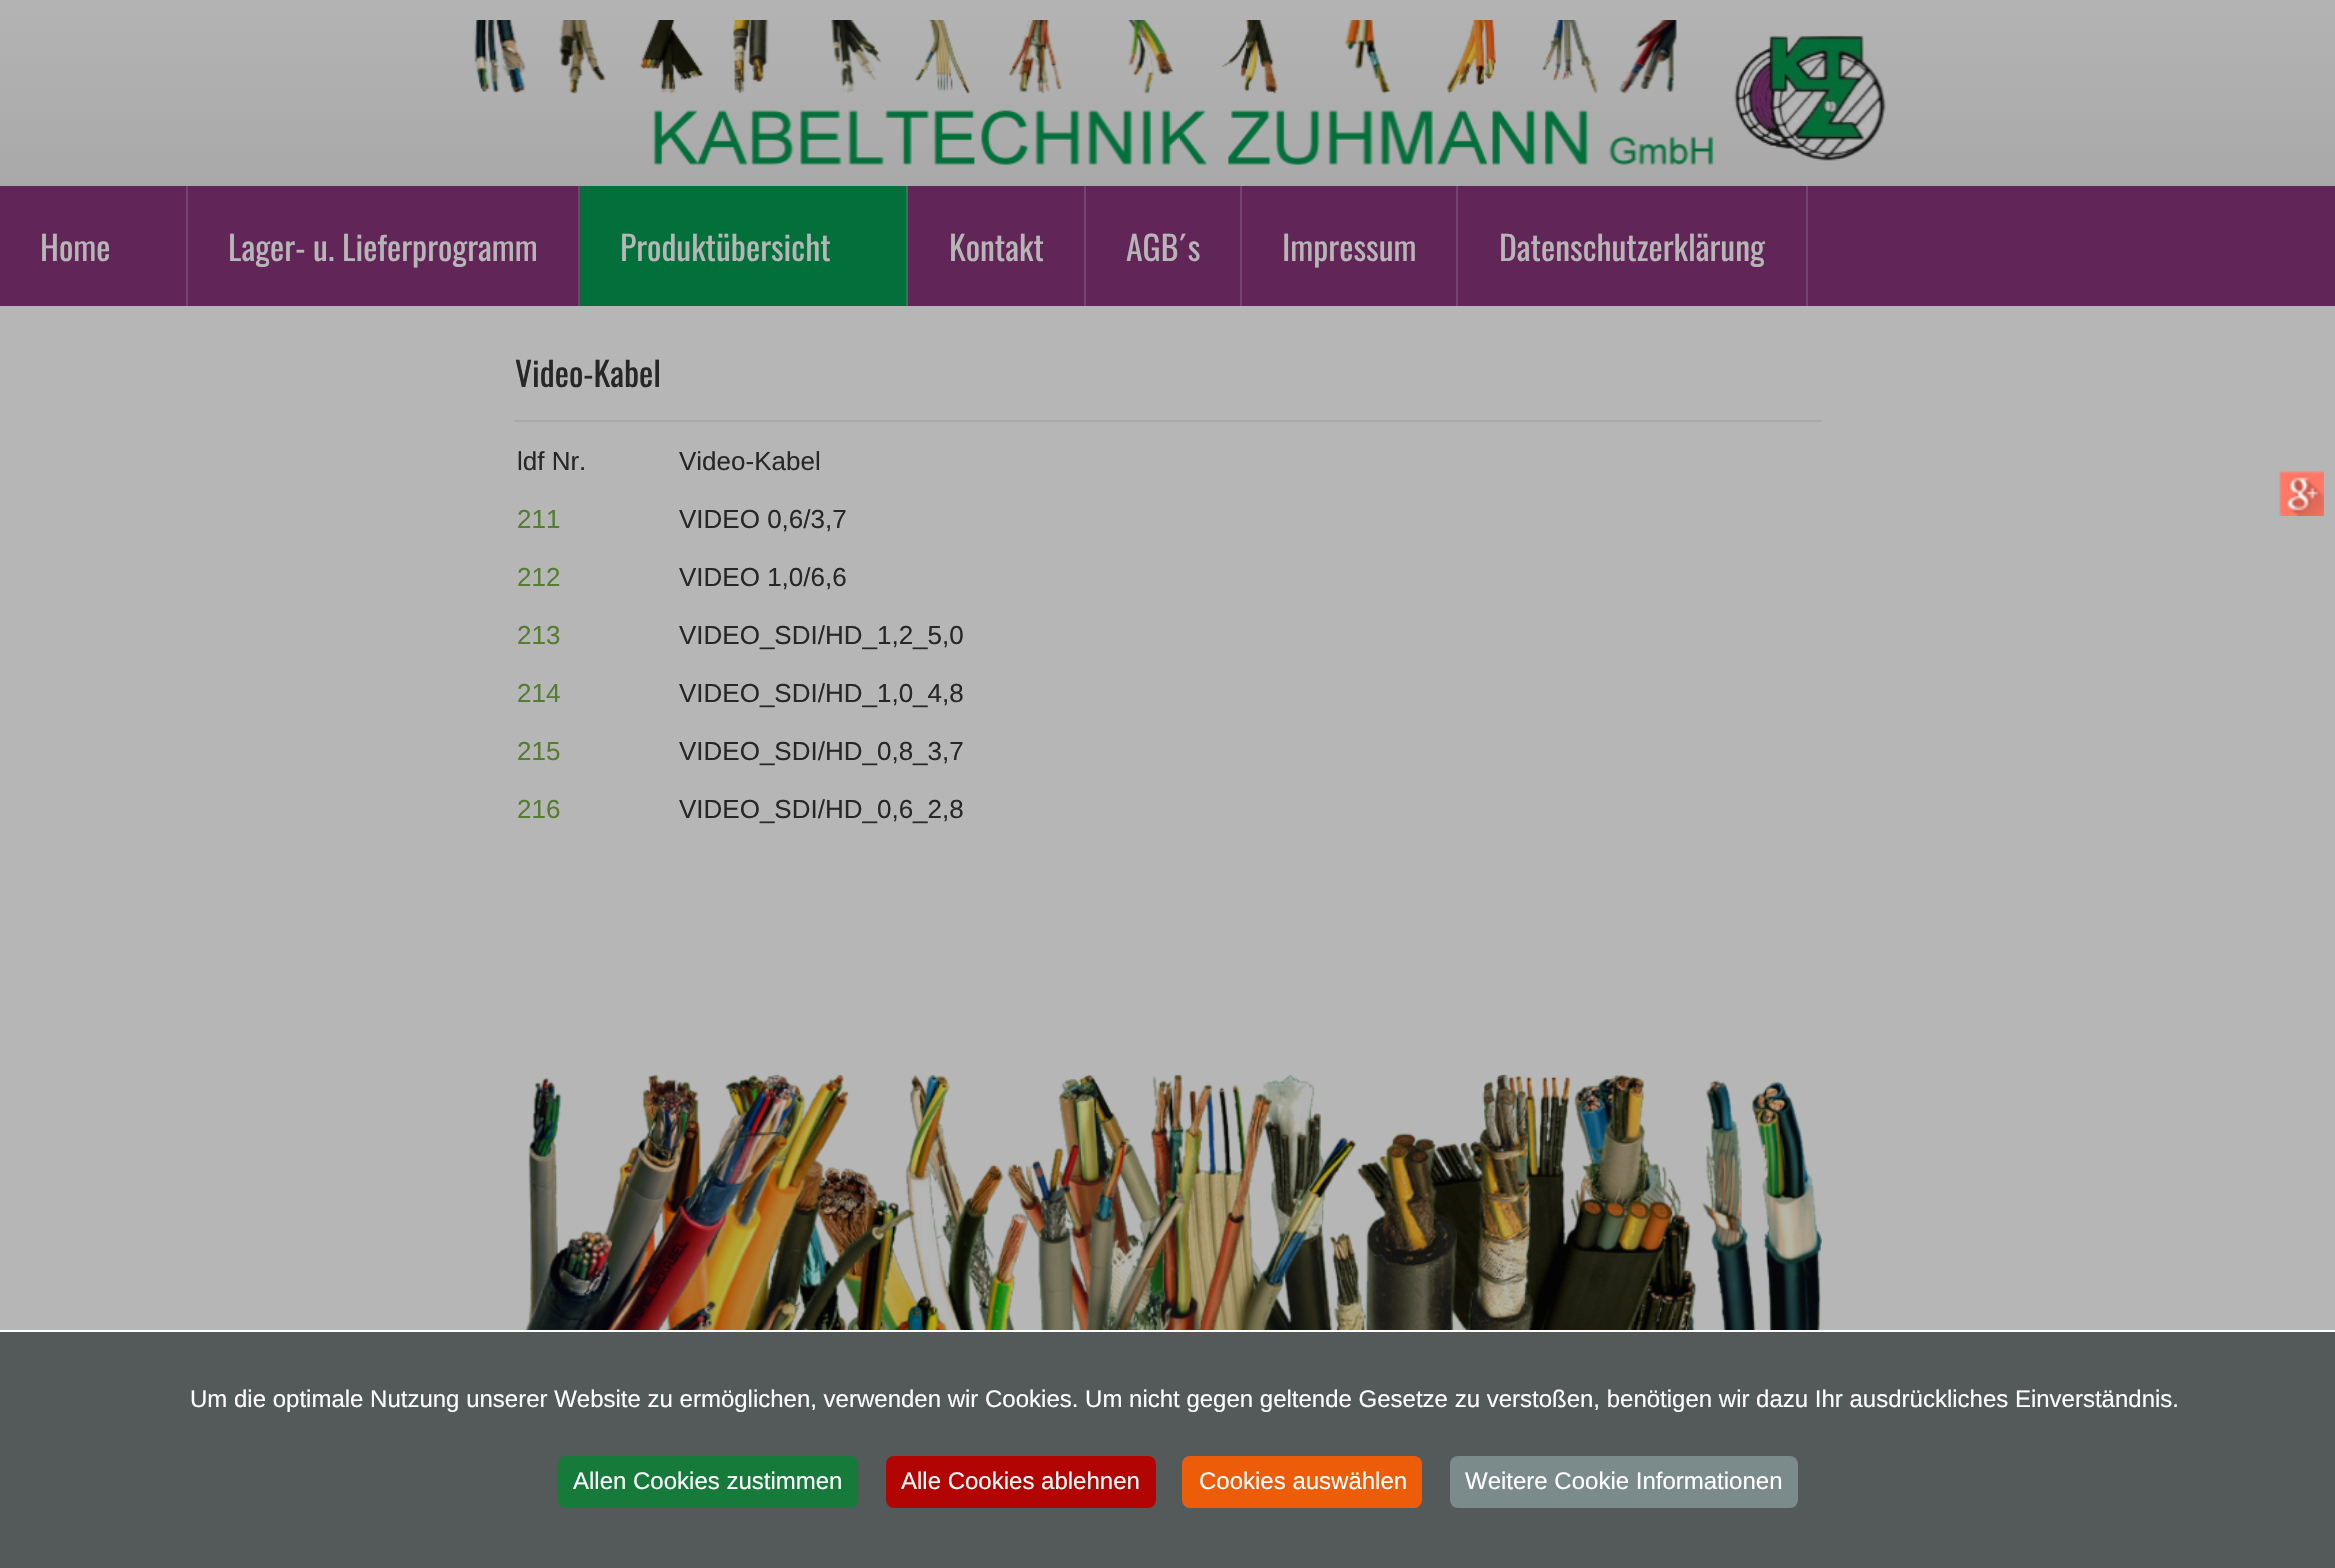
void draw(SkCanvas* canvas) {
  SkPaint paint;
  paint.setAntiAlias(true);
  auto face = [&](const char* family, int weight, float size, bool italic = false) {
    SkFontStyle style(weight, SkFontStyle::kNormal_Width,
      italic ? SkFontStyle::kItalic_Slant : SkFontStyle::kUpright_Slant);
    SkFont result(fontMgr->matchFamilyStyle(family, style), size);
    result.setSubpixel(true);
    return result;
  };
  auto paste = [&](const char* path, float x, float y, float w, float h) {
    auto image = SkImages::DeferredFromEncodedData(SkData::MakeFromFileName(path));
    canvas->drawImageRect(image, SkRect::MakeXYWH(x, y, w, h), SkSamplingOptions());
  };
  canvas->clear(0xffb6b6b6);
  paste("img/1.png", 0, 0, 2335, 186);
  paste("img/2.png", 474, 20, 1412, 145);
  {
    const struct { float x, y, w, h; SkColor color; } items[] = {
      {0, 186, 2335, 120, 0xff622558},
      {186, 186, 2, 120, 0xff73436b},
      {578, 186, 2, 120, 0xff73436b},
      {580, 186, 326, 120, 0xff036f3a},
      {906, 186, 2, 120, 0xff297d54},
      {1084, 186, 2, 120, 0xff73436b},
      {1240, 186, 2, 120, 0xff73436b},
      {1456, 186, 2, 120, 0xff73436b},
      {1806, 186, 2, 120, 0xff73436b},
      {514, 420, 1308, 2, 0xffaaaaaa},
    };
    for (auto [x, y, w, h, color] : items) {
      paint.setColor(color);
      canvas->drawRect(SkRect::MakeXYWH(x, y, w, h), paint);
    }
  }
  paste("img/3.png", 524, 1074, 1298, 256);
  paste("img/4.png", 2279, 471, 45, 45);
  paint.setColor(0xff545959);
  canvas->drawRect(SkRect::MakeXYWH(0, 1332, 2335, 236), paint);
  paint.setColor(0xfffcfcfc);
  canvas->drawRect(SkRect::MakeXYWH(0, 1330, 2335, 2), paint);
  paint.setColor(0xff167a3b);
  canvas->drawRoundRect(SkRect::MakeXYWH(558, 1456, 300, 52), 8, 8, paint);
  paint.setColor(0xffb30404);
  canvas->drawRoundRect(SkRect::MakeXYWH(886, 1456, 270, 52), 8, 8, paint);
  paint.setColor(0xffed5d09);
  canvas->drawRoundRect(SkRect::MakeXYWH(1182, 1456, 240, 52), 8, 8, paint);
  paint.setColor(0xff7b8a8b);
  canvas->drawRoundRect(SkRect::MakeXYWH(1450, 1456, 348, 52), 8, 8, paint);
  auto f0 = face("Oswald", 400, 33.75f);
  paint.setColor(0xffb6b6b6);
  {
    const struct { const char* s; float x, y; } items[] = {
      {"Home", 40, 261},
      {"Lager- u. Lieferprogramm", 228, 261},
      {"Produktübersicht", 620, 261},
      {"Kontakt", 949, 261},
      {"AGB´s", 1126, 261},
      {"Impressum", 1282, 261},
      {"Datenschutzerklärung", 1499, 261},
    };
    for (auto [s, x, y] : items) {
      canvas->drawString(s, x, y, f0, paint);
    }
  }
  paint.setColor(0xff272727);
  canvas->drawString("Video-Kabel", 515, 387, f0, paint);
  auto f1 = face("Liberation Sans", 400, 26);
  canvas->drawString("ldf Nr.", 517, 470, f1, paint);
  canvas->drawString("Video-Kabel", 679, 470, f1, paint);
  paint.setColor(0xff547d30);
  canvas->drawString("211", 517, 528, f1, paint);
  paint.setColor(0xff272727);
  canvas->drawString("VIDEO 0,6/3,7", 679, 528, f1, paint);
  paint.setColor(0xff547d30);
  canvas->drawString("212", 517, 586, f1, paint);
  paint.setColor(0xff272727);
  canvas->drawString("VIDEO 1,0/6,6", 679, 586, f1, paint);
  paint.setColor(0xff547d30);
  canvas->drawString("213", 517, 644, f1, paint);
  paint.setColor(0xff272727);
  canvas->drawString("VIDEO_SDI/HD_1,2_5,0", 679, 644, f1, paint);
  paint.setColor(0xff547d30);
  canvas->drawString("214", 517, 702, f1, paint);
  paint.setColor(0xff272727);
  canvas->drawString("VIDEO_SDI/HD_1,0_4,8", 679, 702, f1, paint);
  paint.setColor(0xff547d30);
  canvas->drawString("215", 517, 760, f1, paint);
  paint.setColor(0xff272727);
  canvas->drawString("VIDEO_SDI/HD_0,8_3,7", 679, 760, f1, paint);
  paint.setColor(0xff547d30);
  canvas->drawString("216", 517, 818, f1, paint);
  paint.setColor(0xff272727);
  canvas->drawString("VIDEO_SDI/HD_0,6_2,8", 679, 818, f1, paint);
  auto f2 = face("Liberation Sans", 400, 24);
  paint.setColor(0xffffffff);
  {
    const struct { const char* s; float x, y; } items[] = {
      {"Um die optimale Nutzung unserer Website zu ermöglichen, verwenden wir Cookies. Um nicht gegen geltende Gesetze zu verstoßen, benötigen wir dazu Ihr ausdrückliches Einverständnis.", 190, 1407},
      {"Allen Cookies zustimmen", 573, 1489},
      {"Alle Cookies ablehnen", 901, 1489},
      {"Cookies auswählen", 1199, 1489},
      {"Weitere Cookie Informationen", 1465, 1489},
    };
    for (auto [s, x, y] : items) {
      canvas->drawString(s, x, y, f2, paint);
    }
  }
}
